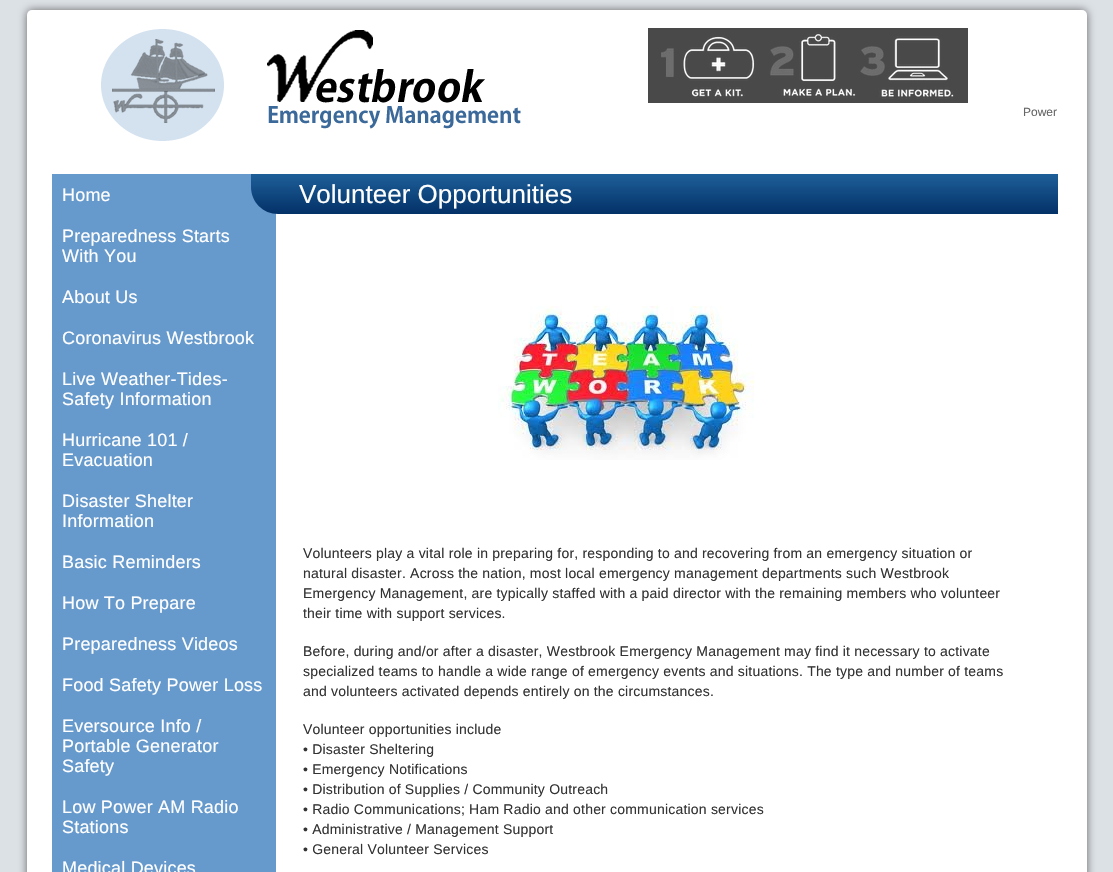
void draw(SkCanvas* canvas) {
  SkPaint paint;
  paint.setAntiAlias(true);
  auto face = [&](const char* family, int weight, float size, bool italic = false) {
    SkFontStyle style(weight, SkFontStyle::kNormal_Width,
      italic ? SkFontStyle::kItalic_Slant : SkFontStyle::kUpright_Slant);
    SkFont result(fontMgr->matchFamilyStyle(family, style), size);
    result.setSubpixel(true);
    return result;
  };
  auto writeSpaced = [&](const char* s, float x, float y, const SkFont& font, const SkPaint& ink, float letter, float word) {
    std::vector<SkGlyphID> glyphs(font.countText(s, strlen(s), SkTextEncoding::kUTF8));
    std::vector<float> xs(glyphs.size());
    font.textToGlyphs(s, strlen(s), SkTextEncoding::kUTF8, glyphs);
    font.getXPos(glyphs, xs, x);
    float extra = 0;
    for (size_t i = 0; i < glyphs.size(); i++) {
      xs[i] += extra;
      extra += letter + word * (glyphs[i] == font.unicharToGlyph(' '));
    }
    canvas->drawTextBlob(SkTextBlob::MakeFromPosHGlyphs(glyphs, xs, y, font), 0, 0, ink);
  };
  auto paste = [&](const char* path, float x, float y, float w, float h) {
    auto image = SkImages::DeferredFromEncodedData(SkData::MakeFromFileName(path));
    canvas->drawImageRect(image, SkRect::MakeXYWH(x, y, w, h), SkSamplingOptions());
  };
  auto shape = [&](const char* data, bool evenOdd = false) {
    SkPath result = *SkParsePath::FromSVGString(data);
    if (evenOdd) result.setFillType(SkPathFillType::kEvenOdd);
    return result;
  };
  canvas->clear(0xffdce1e6);
  paint.setColor(0xff666666);
  paint.setMaskFilter(SkMaskFilter::MakeBlur(kNormal_SkBlurStyle, 4));
  canvas->drawRoundRect(SkRect::MakeXYWH(27, 10, 1060, 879), 5, 5, paint);
  paint.setMaskFilter(nullptr);
  paint.setColor(0xffffffff);
  canvas->drawRoundRect(SkRect::MakeXYWH(27, 10, 1060, 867), 5, 5, paint);
  paste("img/1.png", 101, 29, 420, 112);
  paste("img/2.png", 648, 28, 320, 75);
  paint.setColor(0xff6699cc);
  canvas->drawRect(SkRect::MakeXYWH(52, 174, 224, 698), paint);
  {
    const SkColor colors[] = {0xff1e5f99, 0xff033167};
    const float stops[] = {0, 1};
    const SkPoint ends[] = {{655, 174}, {655, 214}};
    paint.setShader(SkGradientShader::MakeLinear(ends, colors, stops, 2, SkTileMode::kClamp));
    paint.setAlpha(255);
  }
  canvas->drawPath(shape("M251 174H1058V214H278C263 214 251 202 251 187Z"), paint);
  paste("img/3.png", 498, 306, 257, 154);
  auto f0 = face("Liberation Sans", 400, 12);
  paint.setShader(nullptr);
  paint.setColor(0xff666666);
  canvas->drawString("Power", 1023, 116, f0, paint);
  auto f1 = face("Liberation Sans", 400, 18);
  paint.setColor(0xffffffff);
  {
    const struct { const char* s; float x, y; } items[] = {
      {"Home", 62, 201},
      {"Preparedness Starts", 62, 242},
      {"With You", 62, 262},
      {"About Us", 62, 303},
      {"Coronavirus Westbrook", 62, 344},
      {"Live Weather-Tides-", 62, 385},
      {"Safety Information", 62, 405},
      {"Hurricane 101 /", 62, 446},
      {"Evacuation", 62, 466},
      {"Disaster Shelter", 62, 507},
      {"Information", 62, 527},
      {"Basic Reminders", 62, 568},
      {"How To Prepare", 62, 609},
      {"Preparedness Videos", 62, 650},
      {"Food Safety Power Loss", 62, 691},
      {"Eversource Info /", 62, 732},
      {"Portable Generator", 62, 752},
      {"Safety", 62, 772},
      {"Low Power AM Radio", 62, 813},
      {"Stations", 62, 833},
      {"Medical Devices", 62, 874},
    };
    for (auto [s, x, y] : items) {
      writeSpaced(s, x, y, f1, paint, 0.2f, 0);
    }
  }
  auto f2 = face("Liberation Sans", 400, 26);
  canvas->drawString("Volunteer Opportunities", 299, 203, f2, paint);
  auto f3 = face("Liberation Sans", 400, 14);
  paint.setColor(0xff333333);
  {
    const struct { const char* s; float x, y; } items[] = {
      {"Volunteers play a vital role in preparing for, responding to and recovering from an emergency situation or", 303, 558},
      {"natural disaster. Across the nation, most local emergency management departments such Westbrook", 303, 578},
      {"Emergency Management, are typically staffed with a paid director with the remaining members who volunteer", 303, 598},
      {"their time with support services.", 303, 618},
      {"Before, during and/or after a disaster, Westbrook Emergency Management may find it necessary to activate", 303, 656},
      {"specialized teams to handle a wide range of emergency events and situations. The type and number of teams", 303, 676},
      {"and volunteers activated depends entirely on the circumstances.", 303, 696},
      {"Volunteer opportunities include", 303, 734},
      {"• Disaster Sheltering", 303, 754},
      {"• Emergency Notifications", 303, 774},
      {"• Distribution of Supplies / Community Outreach", 303, 794},
      {"• Radio Communications; Ham Radio and other communication services", 303, 814},
      {"• Administrative / Management Support", 303, 834},
      {"• General Volunteer Services", 303, 854},
    };
    for (auto [s, x, y] : items) {
      writeSpaced(s, x, y, f3, paint, 0.2f, 0);
    }
  }
}
